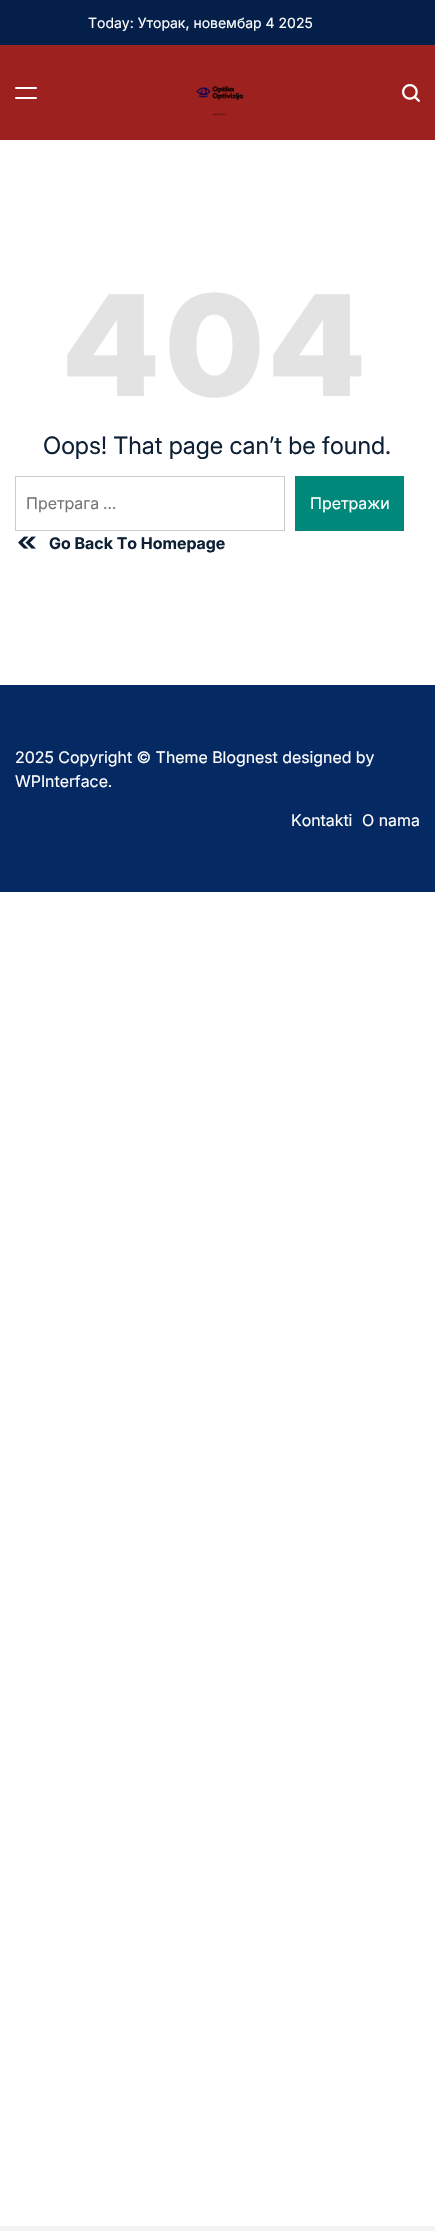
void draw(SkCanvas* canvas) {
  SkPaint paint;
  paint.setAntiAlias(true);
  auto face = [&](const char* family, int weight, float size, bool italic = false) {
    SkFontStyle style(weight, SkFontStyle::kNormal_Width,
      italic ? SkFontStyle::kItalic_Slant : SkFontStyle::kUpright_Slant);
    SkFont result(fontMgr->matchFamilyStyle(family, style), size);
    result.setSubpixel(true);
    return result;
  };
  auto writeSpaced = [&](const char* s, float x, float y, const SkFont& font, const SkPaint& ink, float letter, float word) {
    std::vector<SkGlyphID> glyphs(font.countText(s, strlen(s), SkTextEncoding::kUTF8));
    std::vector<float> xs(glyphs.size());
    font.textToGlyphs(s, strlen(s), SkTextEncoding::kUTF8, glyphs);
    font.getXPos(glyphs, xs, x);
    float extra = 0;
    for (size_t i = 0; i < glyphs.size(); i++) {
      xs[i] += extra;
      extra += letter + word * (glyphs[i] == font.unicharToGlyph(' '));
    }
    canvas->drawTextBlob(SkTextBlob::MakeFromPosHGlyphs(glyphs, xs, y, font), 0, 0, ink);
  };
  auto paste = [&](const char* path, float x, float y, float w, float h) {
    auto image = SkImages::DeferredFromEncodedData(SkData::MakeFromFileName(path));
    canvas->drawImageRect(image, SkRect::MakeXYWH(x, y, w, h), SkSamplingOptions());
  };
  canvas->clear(0xffffffff);
  paint.setColor(0xff041f4a);
  canvas->drawRect(SkRect::MakeXYWH(0, 0, 435, 45), paint);
  paint.setColor(0xff9d211e);
  canvas->drawRect(SkRect::MakeXYWH(0, 45, 435, 95), paint);
  paint.setColor(0xffffffff);
  canvas->drawRoundRect(SkRect::MakeXYWH(15, 87, 22, 2), 1, 1, paint);
  canvas->drawRoundRect(SkRect::MakeXYWH(15, 97, 22, 2), 1, 1, paint);
  paste("img/1.png", 196, 86, 48, 30);
  paste("img/2.png", 402, 84, 18, 18);
  paint.setStroke(true);
  paint.setStrokeWidth(1);
  paint.setColor(0xffcccccc);
  canvas->drawRect(SkRect::MakeXYWH(15.5f, 476.5f, 269, 54), paint);
  paint.setStroke(false);
  paint.setColor(0xff00887a);
  canvas->drawRect(SkRect::MakeXYWH(295, 476, 109, 55), paint);
  paste("img/3.png", 18, 536, 18, 13);
  paint.setColor(0xff052962);
  canvas->drawRect(SkRect::MakeXYWH(0, 685, 435, 207), paint);
  paint.setColor(0xfff3f3f3);
  canvas->drawRect(SkRect::MakeXYWH(0, 2226, 435, 5), paint);
  auto f0 = face("Inter", 400, 14);
  paint.setColor(0xffffffff);
  canvas->drawString("Today: Уторак, новембар 4 2025", 88, 28, f0, paint);
  auto f1 = face("Inter", 900, 140);
  paint.setColor(0xffe3e3e3);
  writeSpaced("404", 63, 396, f1, paint, 7, 0);
  auto f2 = face("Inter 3", 400, 24);
  paint.setColor(0xff0d2035);
  canvas->drawString("Oops! That page can’t be found.", 43, 454, f2, paint);
  auto f3 = face("Inter", 400, 16);
  paint.setColor(0xff757575);
  canvas->drawString("Претрага", 26, 509, f3, paint);
  auto f4 = face("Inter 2", 400, 16);
  canvas->drawString("…", 103, 509, f4, paint);
  paint.setColor(0xffffffff);
  canvas->drawString("Претражи", 310, 509, f3, paint);
  auto f5 = face("Inter", 700, 16);
  paint.setColor(0xff0d2035);
  canvas->drawString("Go Back To Homepage", 49, 549, f5, paint);
  paint.setColor(0xffffffff);
  {
    const struct { const char* s; float x, y; } items[] = {
      {"2025 Copyright © Theme Blognest designed by", 15, 763},
      {"WPInterface.", 15, 787},
      {"Kontakti", 291, 826},
      {"O nama", 362, 826},
    };
    for (auto [s, x, y] : items) {
      canvas->drawString(s, x, y, f4, paint);
    }
  }
}
